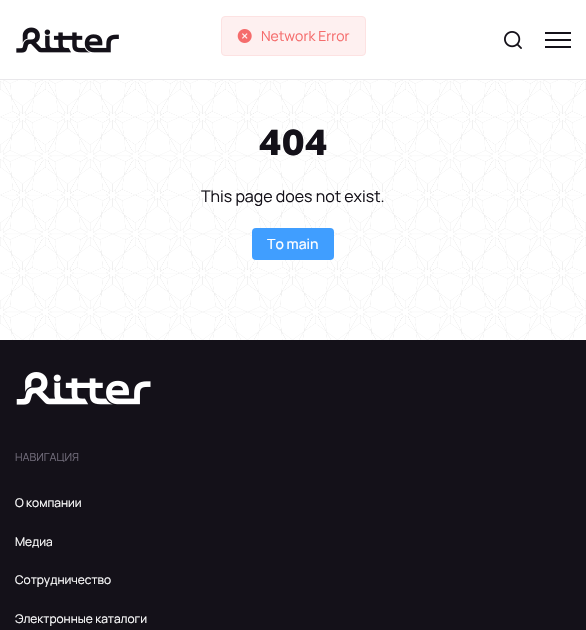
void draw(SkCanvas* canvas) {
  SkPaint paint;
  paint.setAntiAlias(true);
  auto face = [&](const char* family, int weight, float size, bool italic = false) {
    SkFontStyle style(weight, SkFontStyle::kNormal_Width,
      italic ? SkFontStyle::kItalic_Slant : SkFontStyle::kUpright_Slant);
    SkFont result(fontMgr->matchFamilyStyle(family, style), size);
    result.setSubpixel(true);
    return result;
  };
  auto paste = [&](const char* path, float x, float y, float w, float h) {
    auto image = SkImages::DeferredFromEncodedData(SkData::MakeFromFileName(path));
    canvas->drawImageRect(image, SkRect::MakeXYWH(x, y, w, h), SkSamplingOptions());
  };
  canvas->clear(0xffffffff);
  paint.setColor(0xfffef0f0);
  canvas->drawRoundRect(SkRect::MakeXYWH(221.5f, 16.5f, 144, 39), 3.5f, 3.5f, paint);
  paint.setStroke(true);
  paint.setStrokeWidth(1);
  paint.setColor(0xfffde2e2);
  canvas->drawRoundRect(SkRect::MakeXYWH(221.5f, 16.5f, 144, 39), 3.5f, 3.5f, paint);
  paste("img/1.png", 237, 29, 15, 14);
  paint.setStroke(false);
  paint.setColor(0xffe9e8eb);
  canvas->drawRect(SkRect::MakeXYWH(0, 79, 586, 1), paint);
  paste("img/2.png", 16, 27, 103, 26);
  paste("img/3.png", 504, 31, 18, 18);
  {
    const struct { float x, y, w, h; SkColor color; } items[] = {
      {545, 39, 26, 2, 0xff141119},
      {545, 32, 26, 2, 0xff141119},
      {545, 46, 26, 2, 0xff141119},
    };
    for (auto [x, y, w, h, color] : items) {
      paint.setColor(color);
      canvas->drawRect(SkRect::MakeXYWH(x, y, w, h), paint);
    }
  }
  paste("img/4.png", 0, 80, 586, 260);
  paint.setColor(0xff409eff);
  canvas->drawRoundRect(SkRect::MakeXYWH(252, 228, 82, 32), 4, 4, paint);
  paint.setColor(0xff141119);
  canvas->drawRect(SkRect::MakeXYWH(0, 340, 586, 290), paint);
  paste("img/5.png", 16, 372, 135, 33);
  auto f0 = face("Manrope", 400, 14);
  paint.setColor(0xfff56c6c);
  canvas->drawString("Network Error", 261, 41, f0, paint);
  auto f1 = face("Golos Text", 700, 36);
  paint.setColor(0xff141119);
  canvas->drawString("404", 259, 155, f1, paint);
  auto f2 = face("Manrope", 400, 16);
  canvas->drawString("This page does not exist.", 201, 202, f2, paint);
  auto f3 = face("Manrope", 500, 14);
  paint.setColor(0xffffffff);
  canvas->drawString("To main", 267, 249, f3, paint);
  auto f4 = face("Manrope", 400, 11);
  paint.setColor(0xff6f6a78);
  canvas->drawString("НАВИГАЦИЯ", 15, 461, f4, paint);
  auto f5 = face("Manrope", 400, 12);
  paint.setColor(0xffffffff);
  {
    const struct { const char* s; float x, y; } items[] = {
      {"О компании", 15, 507},
      {"Медиа", 15, 546},
      {"Сотрудничество", 15, 584},
      {"Электронные каталоги", 15, 623},
    };
    for (auto [s, x, y] : items) {
      canvas->drawString(s, x, y, f5, paint);
    }
  }
}
